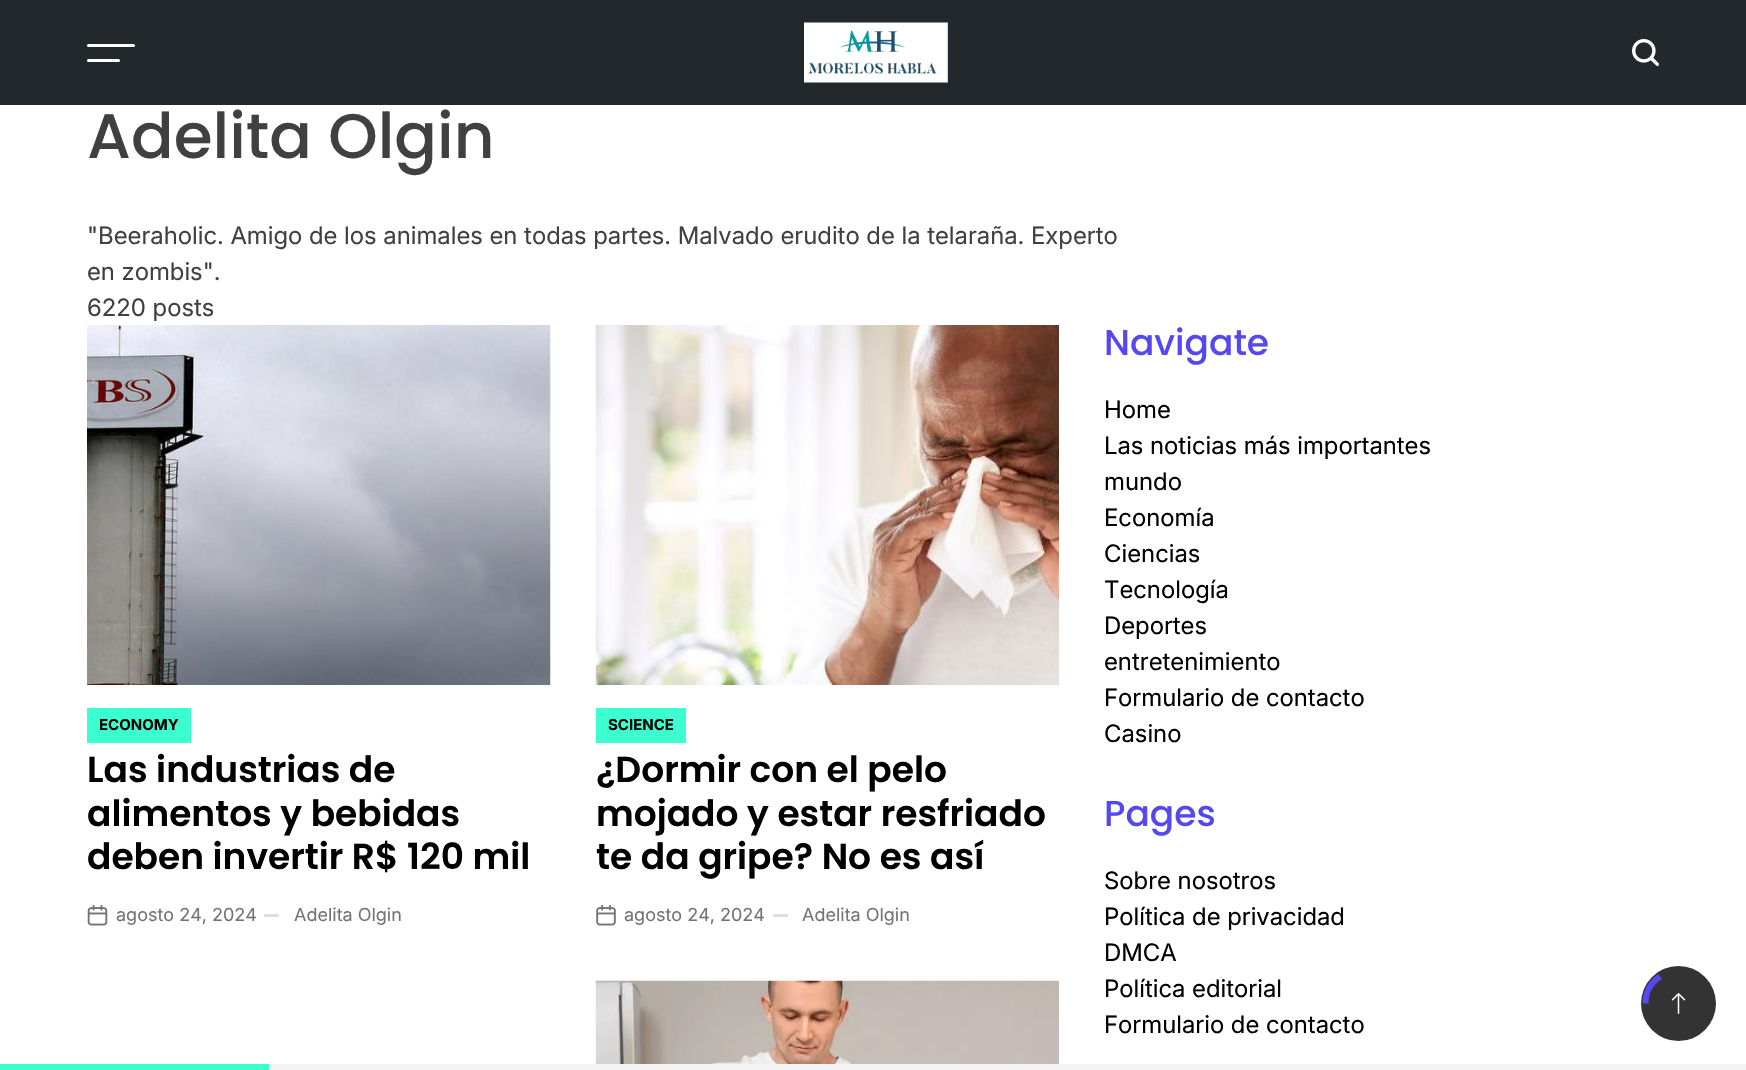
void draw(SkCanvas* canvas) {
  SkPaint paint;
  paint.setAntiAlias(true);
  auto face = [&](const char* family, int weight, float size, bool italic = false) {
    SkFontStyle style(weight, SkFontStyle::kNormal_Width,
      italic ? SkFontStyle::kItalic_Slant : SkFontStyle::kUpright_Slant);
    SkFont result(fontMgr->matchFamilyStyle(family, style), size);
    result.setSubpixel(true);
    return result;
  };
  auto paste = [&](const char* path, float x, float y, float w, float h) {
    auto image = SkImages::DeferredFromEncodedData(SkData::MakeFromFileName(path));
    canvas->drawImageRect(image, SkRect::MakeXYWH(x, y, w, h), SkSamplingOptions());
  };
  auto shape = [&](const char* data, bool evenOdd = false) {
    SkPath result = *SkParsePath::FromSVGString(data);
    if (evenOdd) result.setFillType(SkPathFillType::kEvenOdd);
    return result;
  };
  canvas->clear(0xffffffff);
  paint.setColor(0xff23282d);
  canvas->drawRect(SkRect::MakeXYWH(0, 0, 1746, 105), paint);
  paint.setColor(0xffffffff);
  canvas->drawRoundRect(SkRect::MakeXYWH(87, 44, 48, 3), 1.5f, 1.5f, paint);
  canvas->drawRoundRect(SkRect::MakeXYWH(87, 59, 33, 3), 1.5f, 1.5f, paint);
  paste("img/1.png", 804, 22, 144, 61);
  paste("img/2.png", 1632, 39, 27, 27);
  paste("img/3.png", 87, 325, 464, 360);
  paint.setColor(0xff3cffd0);
  canvas->drawRect(SkRect::MakeXYWH(87, 708, 104, 35), paint);
  paste("img/4.png", 87, 905, 21, 21);
  paint.setColor(0xffdedfdf);
  canvas->drawRect(SkRect::MakeXYWH(264, 914, 15, 3), paint);
  paste("img/5.png", 595, 325, 464, 360);
  paint.setColor(0xff3cffd0);
  canvas->drawRect(SkRect::MakeXYWH(596, 708, 90, 35), paint);
  paste("img/6.png", 596, 905, 20, 21);
  paint.setColor(0xffdedfdf);
  canvas->drawRect(SkRect::MakeXYWH(773, 914, 15, 3), paint);
  paste("img/7.png", 595, 980, 464, 84);
  paint.setColor(0xff333333);
  canvas->drawCircle(1678.5f, 1003.5f, 37.5f, paint);
  paint.setStroke(true);
  paint.setStrokeWidth(6);
  paint.setColor(0xff5448ee);
  canvas->drawPath(shape("M1645.5 1003.5C1645.5 992 1651 982.5 1660 976.5"), paint);
  paste("img/8.png", 1671, 993, 15, 21);
  paint.setStroke(false);
  paint.setColor(0xfff3f3f3);
  canvas->drawRect(SkRect::MakeXYWH(269, 1064, 1477, 6), paint);
  paint.setColor(0xff3cffd0);
  canvas->drawRect(SkRect::MakeXYWH(0, 1064, 269, 6), paint);
  auto f0 = face("Poppins", 500, 63);
  paint.setColor(0xff404040);
  canvas->drawString("Adelita Olgin", 87, 158, f0, paint);
  auto f1 = face("Inter", 400, 24);
  {
    const struct { const char* s; float x, y; } items[] = {
      {"\"Beeraholic. Amigo de los animales en todas partes. Malvado erudito de la telaraña. Experto", 87, 244},
      {"en zombis\".", 87, 280},
      {"6220 posts", 87, 316},
    };
    for (auto [s, x, y] : items) {
      canvas->drawString(s, x, y, f1, paint);
    }
  }
  auto f2 = face("Inter", 700, 15);
  paint.setColor(0xff000000);
  canvas->drawString("ECONOMY", 99, 730, f2, paint);
  auto f3 = face("Poppins", 600, 36);
  {
    const struct { const char* s; float x, y; } items[] = {
      {"Las industrias de", 87, 782},
      {"alimentos y bebidas", 87, 826},
      {"deben invertir R$ 120 mil", 87, 869},
    };
    for (auto [s, x, y] : items) {
      canvas->drawString(s, x, y, f3, paint);
    }
  }
  auto f4 = face("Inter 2", 400, 18);
  paint.setColor(0xff737373);
  canvas->drawString("agosto 24, 2024", 116, 921, f4, paint);
  canvas->drawString("Adelita Olgin", 294, 921, f4, paint);
  paint.setColor(0xff000000);
  canvas->drawString("SCIENCE", 608, 730, f2, paint);
  {
    const struct { const char* s; float x, y; } items[] = {
      {"¿Dormir con el pelo", 596, 782},
      {"mojado y estar resfriado", 596, 826},
      {"te da gripe? No es así", 596, 869},
    };
    for (auto [s, x, y] : items) {
      canvas->drawString(s, x, y, f3, paint);
    }
  }
  paint.setColor(0xff737373);
  canvas->drawString("agosto 24, 2024", 624, 921, f4, paint);
  canvas->drawString("Adelita Olgin", 802, 921, f4, paint);
  auto f5 = face("Poppins", 500, 36);
  paint.setColor(0xff5448ee);
  canvas->drawString("Navigate", 1104, 355, f5, paint);
  paint.setColor(0xff000000);
  {
    const struct { const char* s; float x, y; } items[] = {
      {"Home", 1104, 418},
      {"Las noticias más importantes", 1104, 454},
      {"mundo", 1104, 490},
      {"Economía", 1104, 526},
      {"Ciencias", 1104, 562},
      {"Tecnología", 1104, 598},
      {"Deportes", 1104, 634},
      {"entretenimiento", 1104, 670},
      {"Formulario de contacto", 1104, 706},
      {"Casino", 1104, 742},
    };
    for (auto [s, x, y] : items) {
      canvas->drawString(s, x, y, f1, paint);
    }
  }
  paint.setColor(0xff5448ee);
  canvas->drawString("Pages", 1104, 826, f5, paint);
  paint.setColor(0xff000000);
  {
    const struct { const char* s; float x, y; } items[] = {
      {"Sobre nosotros", 1104, 889},
      {"Política de privacidad", 1104, 925},
      {"DMCA", 1104, 961},
      {"Política editorial", 1104, 997},
      {"Formulario de contacto", 1104, 1033},
    };
    for (auto [s, x, y] : items) {
      canvas->drawString(s, x, y, f1, paint);
    }
  }
}
